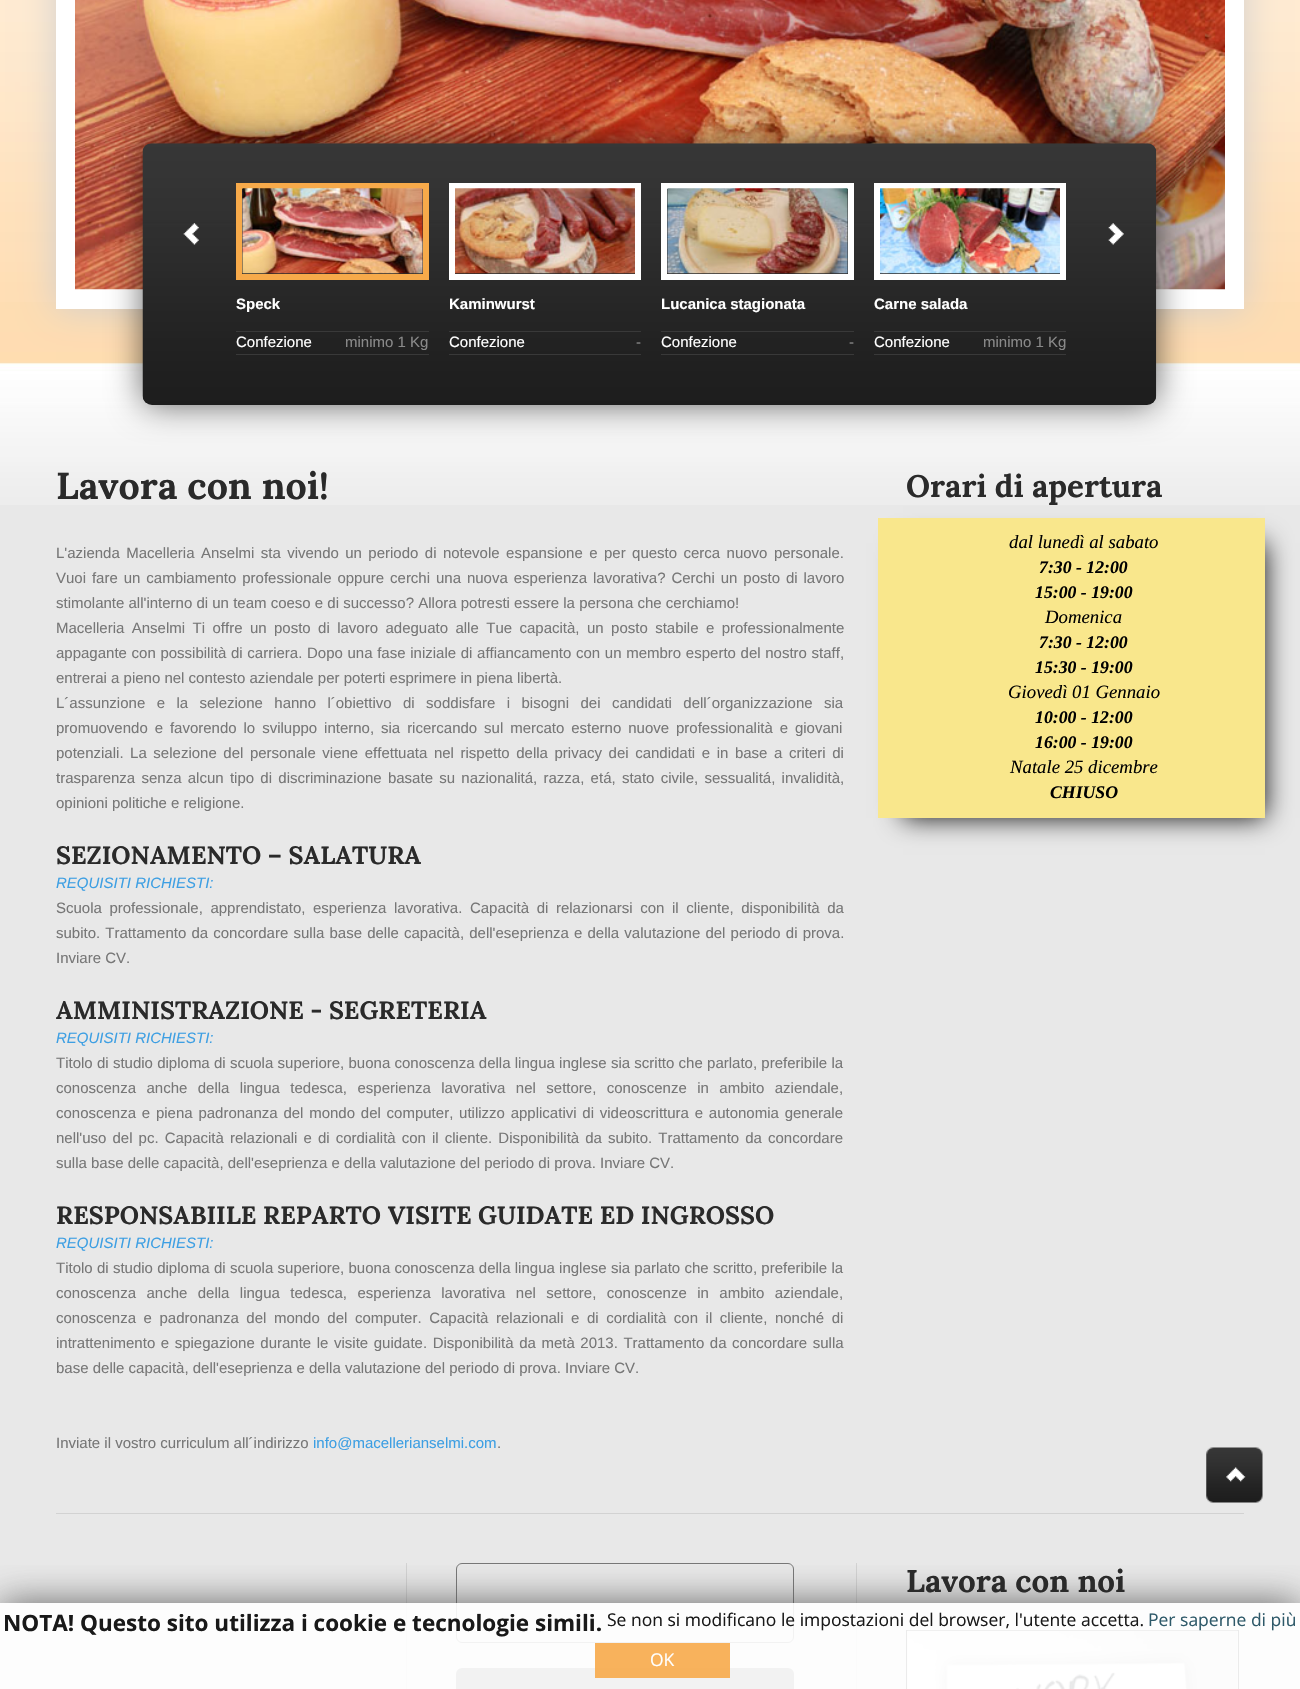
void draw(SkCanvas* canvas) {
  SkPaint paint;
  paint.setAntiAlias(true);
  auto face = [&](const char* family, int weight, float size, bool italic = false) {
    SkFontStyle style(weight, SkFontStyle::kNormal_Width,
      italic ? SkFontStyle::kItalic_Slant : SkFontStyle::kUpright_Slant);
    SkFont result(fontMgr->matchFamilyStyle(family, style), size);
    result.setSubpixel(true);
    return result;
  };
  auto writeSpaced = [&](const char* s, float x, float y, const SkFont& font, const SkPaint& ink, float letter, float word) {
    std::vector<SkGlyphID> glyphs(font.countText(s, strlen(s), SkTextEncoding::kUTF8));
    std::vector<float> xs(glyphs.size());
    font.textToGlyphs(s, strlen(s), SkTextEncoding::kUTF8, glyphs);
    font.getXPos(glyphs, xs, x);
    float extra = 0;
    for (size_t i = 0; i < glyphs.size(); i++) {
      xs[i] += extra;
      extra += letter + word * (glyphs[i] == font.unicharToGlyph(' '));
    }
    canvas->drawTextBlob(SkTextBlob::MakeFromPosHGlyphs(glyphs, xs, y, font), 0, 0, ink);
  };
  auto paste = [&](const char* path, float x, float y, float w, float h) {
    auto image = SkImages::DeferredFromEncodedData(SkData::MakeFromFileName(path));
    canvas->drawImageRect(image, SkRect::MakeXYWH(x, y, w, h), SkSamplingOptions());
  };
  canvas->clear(0xffe8e8e8);
  paste("img/1.png", 0, 0, 1300, 505);
  paint.setColor(0xffd1cfcf);
  paint.setMaskFilter(SkMaskFilter::MakeBlur(kNormal_SkBlurStyle, 17));
  canvas->drawRect(SkRect::MakeXYWH(56, -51, 1188, 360), paint);
  paint.setMaskFilter(nullptr);
  paint.setColor(0xffffffff);
  canvas->drawRect(SkRect::MakeXYWH(56, 0, 1188, 309), paint);
  paste("img/2.png", 75, 0, 1150, 290);
  paint.setColor(0x99000000);
  paint.setMaskFilter(SkMaskFilter::MakeBlur(kNormal_SkBlurStyle, 17));
  canvas->drawRoundRect(SkRect::MakeXYWH(143, 144, 1013, 261), 9, 9, paint);
  paint.setMaskFilter(nullptr);
  paint.setColor(0xff1d1d1d);
  canvas->drawRoundRect(SkRect::MakeXYWH(143, 144, 1013, 261), 9, 9, paint);
  paste("img/3.png", 142, 143, 1015, 261);
  paste("img/4.png", 183, 223, 16, 22);
  paste("img/5.png", 1108, 223, 16, 22);
  paint.setStroke(true);
  paint.setStrokeWidth(6);
  paint.setColor(0xfff7aa4a);
  canvas->drawRect(SkRect::MakeXYWH(239, 186, 187, 91), paint);
  paste("img/6.png", 242, 188, 181, 86);
  paint.setStroke(false);
  paint.setColor(0xff393939);
  canvas->drawRect(SkRect::MakeXYWH(236, 331, 193, 1), paint);
  canvas->drawRect(SkRect::MakeXYWH(236, 354, 193, 1), paint);
  paint.setStroke(true);
  paint.setColor(0xffffffff);
  canvas->drawRect(SkRect::MakeXYWH(452, 186, 186, 91), paint);
  paste("img/7.png", 455, 188, 180, 86);
  paint.setStroke(false);
  paint.setColor(0xff393939);
  canvas->drawRect(SkRect::MakeXYWH(449, 331, 192, 1), paint);
  canvas->drawRect(SkRect::MakeXYWH(449, 354, 192, 1), paint);
  paint.setStroke(true);
  paint.setColor(0xffffffff);
  canvas->drawRect(SkRect::MakeXYWH(664, 186, 187, 91), paint);
  paste("img/8.png", 667, 188, 181, 86);
  paint.setStroke(false);
  paint.setColor(0xff393939);
  canvas->drawRect(SkRect::MakeXYWH(661, 331, 193, 1), paint);
  canvas->drawRect(SkRect::MakeXYWH(661, 354, 193, 1), paint);
  paint.setStroke(true);
  paint.setColor(0xffffffff);
  canvas->drawRect(SkRect::MakeXYWH(877, 186, 186, 91), paint);
  paste("img/9.png", 880, 188, 180, 86);
  paint.setStroke(false);
  paint.setColor(0xff393939);
  canvas->drawRect(SkRect::MakeXYWH(874, 331, 192, 1), paint);
  canvas->drawRect(SkRect::MakeXYWH(874, 354, 192, 1), paint);
  paint.setColor(0xff111111);
  paint.setMaskFilter(SkMaskFilter::MakeBlur(kNormal_SkBlurStyle, 12.5f));
  canvas->drawRect(SkRect::MakeXYWH(903, 543, 362, 275), paint);
  paint.setMaskFilter(nullptr);
  {
    const struct { float x, y, w, h; SkColor color; } items[] = {
      {878, 518, 387, 300, 0xfff9e78c},
      {56, 1513, 1188, 1, 0xffd2d2d2},
      {406, 1563, 1, 126, 0xffd2d2d2},
    };
    for (auto [x, y, w, h, color] : items) {
      paint.setColor(color);
      canvas->drawRect(SkRect::MakeXYWH(x, y, w, h), paint);
    }
  }
  paint.setStroke(true);
  paint.setStrokeWidth(1);
  paint.setColor(0xff777777);
  canvas->drawRoundRect(SkRect::MakeXYWH(456.5f, 1563.5f, 337, 79), 5.5f, 5.5f, paint);
  paint.setStroke(false);
  canvas->drawRoundRect(SkRect::MakeXYWH(456, 1668, 338, 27), 6, 6, paint);
  paint.setColor(0xffd2d2d2);
  canvas->drawRect(SkRect::MakeXYWH(856, 1563, 1, 126), paint);
  paint.setStroke(true);
  paint.setColor(0xff333333);
  canvas->drawRect(SkRect::MakeXYWH(906.5f, 1630.5f, 332, 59), paint);
  paste("img/10.png", 907, 1630, 331, 59);
  paste("img/11.png", 1206, 1447, 57, 56);
  canvas->save();
  canvas->clipRect(SkRect::MakeXYWH(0, 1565, 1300, 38));
  paint.setStroke(false);
  paint.setColor(0xe6555555);
  paint.setMaskFilter(SkMaskFilter::MakeBlur(kNormal_SkBlurStyle, 19));
  canvas->drawRect(SkRect::MakeXYWH(0, 1603, 1300, 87), paint);
  paint.setMaskFilter(nullptr);
  canvas->restore();
  paint.setColor(0xe6ffffff);
  canvas->drawRect(SkRect::MakeXYWH(0, 1603, 1300, 86), paint);
  paint.setColor(0xe6f7aa4a);
  canvas->drawRect(SkRect::MakeXYWH(595, 1643, 135, 35), paint);
  auto f0 = face("Liberation Sans", 700, 15);
  paint.setColor(0xffffffff);
  canvas->drawString("Speck", 236, 309, f0, paint);
  auto f1 = face("Liberation Sans", 400, 15);
  canvas->drawString("Confezione", 236, 347, f1, paint);
  paint.setColor(0xff898989);
  canvas->drawString("minimo 1 Kg", 345, 347, f1, paint);
  paint.setColor(0xffffffff);
  canvas->drawString("Kaminwurst", 449, 309, f0, paint);
  canvas->drawString("Confezione", 449, 347, f1, paint);
  paint.setColor(0xff898989);
  canvas->drawString("-", 636, 347, f1, paint);
  paint.setColor(0xffffffff);
  canvas->drawString("Lucanica stagionata", 661, 309, f0, paint);
  canvas->drawString("Confezione", 661, 347, f1, paint);
  paint.setColor(0xff898989);
  canvas->drawString("-", 849, 347, f1, paint);
  paint.setColor(0xffffffff);
  canvas->drawString("Carne salada", 874, 309, f0, paint);
  canvas->drawString("Confezione", 874, 347, f1, paint);
  paint.setColor(0xff898989);
  canvas->drawString("minimo 1 Kg", 983, 347, f1, paint);
  auto f2 = face("Lora", 700, 37.5f);
  paint.setColor(0xff2a2a2a);
  canvas->drawString("Lavora con noi!", 56, 499, f2, paint);
  paint.setColor(0xff777777);
  writeSpaced("L'azienda Macelleria Anselmi sta vivendo un periodo di notevole espansione e per questo cerca nuovo personale.", 56, 558, f1, paint, 0, 2.25f);
  writeSpaced("Vuoi fare un cambiamento professionale oppure cerchi una nuova esperienza lavorativa? Cerchi un posto di lavoro", 56, 583, f1, paint, 0, 1.75f);
  canvas->drawString("stimolante all'interno di un team coeso e di successo? Allora potresti essere la persona che cerchiamo!", 56, 608, f1, paint);
  writeSpaced("Macelleria Anselmi Ti offre un posto di lavoro adeguato alle Tue capacità, un posto stabile e professionalmente", 56, 633, f1, paint, 0, 3.25f);
  writeSpaced("appagante con possibilità di carriera. Dopo una fase iniziale di affiancamento con un membro esperto del nostro staff,", 56, 658, f1, paint, 0, 0.5f);
  canvas->drawString("entrerai a pieno nel contesto aziendale per poterti esprimere in piena libertà.", 56, 683, f1, paint);
  writeSpaced("L´assunzione e la selezione hanno l´obiettivo di soddisfare i bisogni dei candidati dell´organizzazione sia", 56, 708, f1, paint, 0, 7.25f);
  writeSpaced("promuovendo e favorendo lo sviluppo interno, sia ricercando sul mercato esterno nuove professionalità e giovani", 56, 733, f1, paint, 0, 2.75f);
  writeSpaced("potenziali. La selezione del personale viene effettuata nel rispetto della privacy dei candidati e in base a criteri di", 56, 758, f1, paint, 0, 2.4f);
  writeSpaced("trasparenza senza alcun tipo di discriminazione basate su nazionalitá, razza, etá, stato civile, sessualitá, invalidità,", 56, 783, f1, paint, 0, 2.1f);
  canvas->drawString("opinioni politiche e religione.", 56, 808, f1, paint);
  auto f3 = face("Lora", 700, 25);
  paint.setColor(0xff2a2a2a);
  canvas->drawString("SEZIONAMENTO – SALATURA", 56, 864, f3, paint);
  auto f4 = face("Liberation Sans", 400, 15, true);
  paint.setColor(0xff3d9fe3);
  canvas->drawString("REQUISITI RICHIESTI:", 56, 888, f4, paint);
  paint.setColor(0xff777777);
  writeSpaced("Scuola professionale, apprendistato, esperienza lavorativa. Capacità di relazionarsi con il cliente, disponibilità da", 56, 913, f1, paint, 0, 3.4f);
  writeSpaced("subito. Trattamento da concordare sulla base delle capacità, dell'eseprienza e della valutazione del periodo di prova.", 56, 938, f1, paint, 0, 1);
  canvas->drawString("Inviare CV.", 56, 963, f1, paint);
  paint.setColor(0xff2a2a2a);
  canvas->drawString("AMMINISTRAZIONE - SEGRETERIA", 56, 1019, f3, paint);
  paint.setColor(0xff3d9fe3);
  canvas->drawString("REQUISITI RICHIESTI:", 56, 1043, f4, paint);
  paint.setColor(0xff777777);
  writeSpaced("Titolo di studio diploma di scuola superiore, buona conoscenza della lingua inglese sia scritto che parlato, preferibile la", 56, 1068, f1, paint, 0, 0.1f);
  writeSpaced("conoscenza anche della lingua tedesca, esperienza lavorativa nel settore, conoscenze in ambito aziendale,", 56, 1093, f1, paint, 0, 6.25f);
  writeSpaced("conoscenza e piena padronanza del mondo del computer, utilizzo applicativi di videoscrittura e autonomia generale", 56, 1118, f1, paint, 0, 1.6f);
  writeSpaced("nell'uso del pc. Capacità relazionali e di cordialità con il cliente. Disponibilità da subito. Trattamento da concordare", 56, 1143, f1, paint, 0, 1.9f);
  canvas->drawString("sulla base delle capacità, dell'eseprienza e della valutazione del periodo di prova. Inviare CV.", 56, 1168, f1, paint);
  paint.setColor(0xff2a2a2a);
  canvas->drawString("RESPONSABIILE REPARTO VISITE GUIDATE ED INGROSSO", 56, 1224, f3, paint);
  paint.setColor(0xff3d9fe3);
  canvas->drawString("REQUISITI RICHIESTI:", 56, 1248, f4, paint);
  paint.setColor(0xff777777);
  writeSpaced("Titolo di studio diploma di scuola superiore, buona conoscenza della lingua inglese sia parlato che scritto, preferibile la", 56, 1273, f1, paint, 0, 0.1f);
  writeSpaced("conoscenza anche della lingua tedesca, esperienza lavorativa nel settore, conoscenze in ambito aziendale,", 56, 1298, f1, paint, 0, 6.25f);
  writeSpaced("conoscenza e padronanza del mondo del computer. Capacità relazionali e di cordialità con il cliente, nonché di", 56, 1323, f1, paint, 0, 3.4f);
  writeSpaced("intrattenimento e spiegazione durante le visite guidate. Disponibilità da metà 2013. Trattamento da concordare sulla", 56, 1348, f1, paint, 0, 1.4f);
  canvas->drawString("base delle capacità, dell'eseprienza e della valutazione del periodo di prova. Inviare CV.", 56, 1373, f1, paint);
  canvas->drawString("Inviate il vostro curriculum all´indirizzo", 56, 1448, f1, paint);
  paint.setColor(0xff3d9fe3);
  canvas->drawString("info@macellerianselmi.com", 313, 1448, f1, paint);
  paint.setColor(0xff777777);
  canvas->drawString(".", 497, 1448, f1, paint);
  auto f5 = face("Lora", 700, 31.25f);
  paint.setColor(0xff2a2a2a);
  canvas->drawString("Orari di apertura", 906, 497, f5, paint);
  auto f6 = face("Liberation Serif", 400, 18.75f, true);
  paint.setColor(0xff000000);
  canvas->drawString("dal lunedì al sabato", 1009, 548, f6, paint);
  auto f7 = face("Liberation Serif", 700, 17.75f, true);
  canvas->drawString("7:30 - 12:00", 1039, 573, f7, paint);
  canvas->drawString("15:00 - 19:00", 1035, 598, f7, paint);
  canvas->drawString("Domenica", 1045, 623, f6, paint);
  canvas->drawString("7:30 - 12:00", 1039, 648, f7, paint);
  canvas->drawString("15:30 - 19:00", 1035, 673, f7, paint);
  canvas->drawString("Giovedì 01 Gennaio", 1008, 698, f6, paint);
  canvas->drawString("10:00 - 12:00", 1035, 723, f7, paint);
  canvas->drawString("16:00 - 19:00", 1035, 748, f7, paint);
  canvas->drawString("Natale 25 dicembre", 1010, 773, f6, paint);
  canvas->drawString("CHIUSO", 1050, 798, f7, paint);
  paint.setColor(0xff2a2a2a);
  canvas->drawString("Lavora con noi", 906, 1592, f5, paint);
  auto f8 = face("Open Sans", 700, 22.5f);
  paint.setColor(0xff191919);
  canvas->drawString("NOTA! Questo sito utilizza i cookie e tecnologie simili.", 3, 1631, f8, paint);
  auto f9 = face("Open Sans", 400, 17.5f);
  canvas->drawString("Se non si modificano le impostazioni del browser, l'utente accetta.", 607, 1626, f9, paint);
  paint.setColor(0xff2e5969);
  canvas->drawString("Per saperne di più", 1148, 1626, f9, paint);
  paint.setColor(0xffffffff);
  canvas->drawString("OK", 650, 1666, f9, paint);
}
